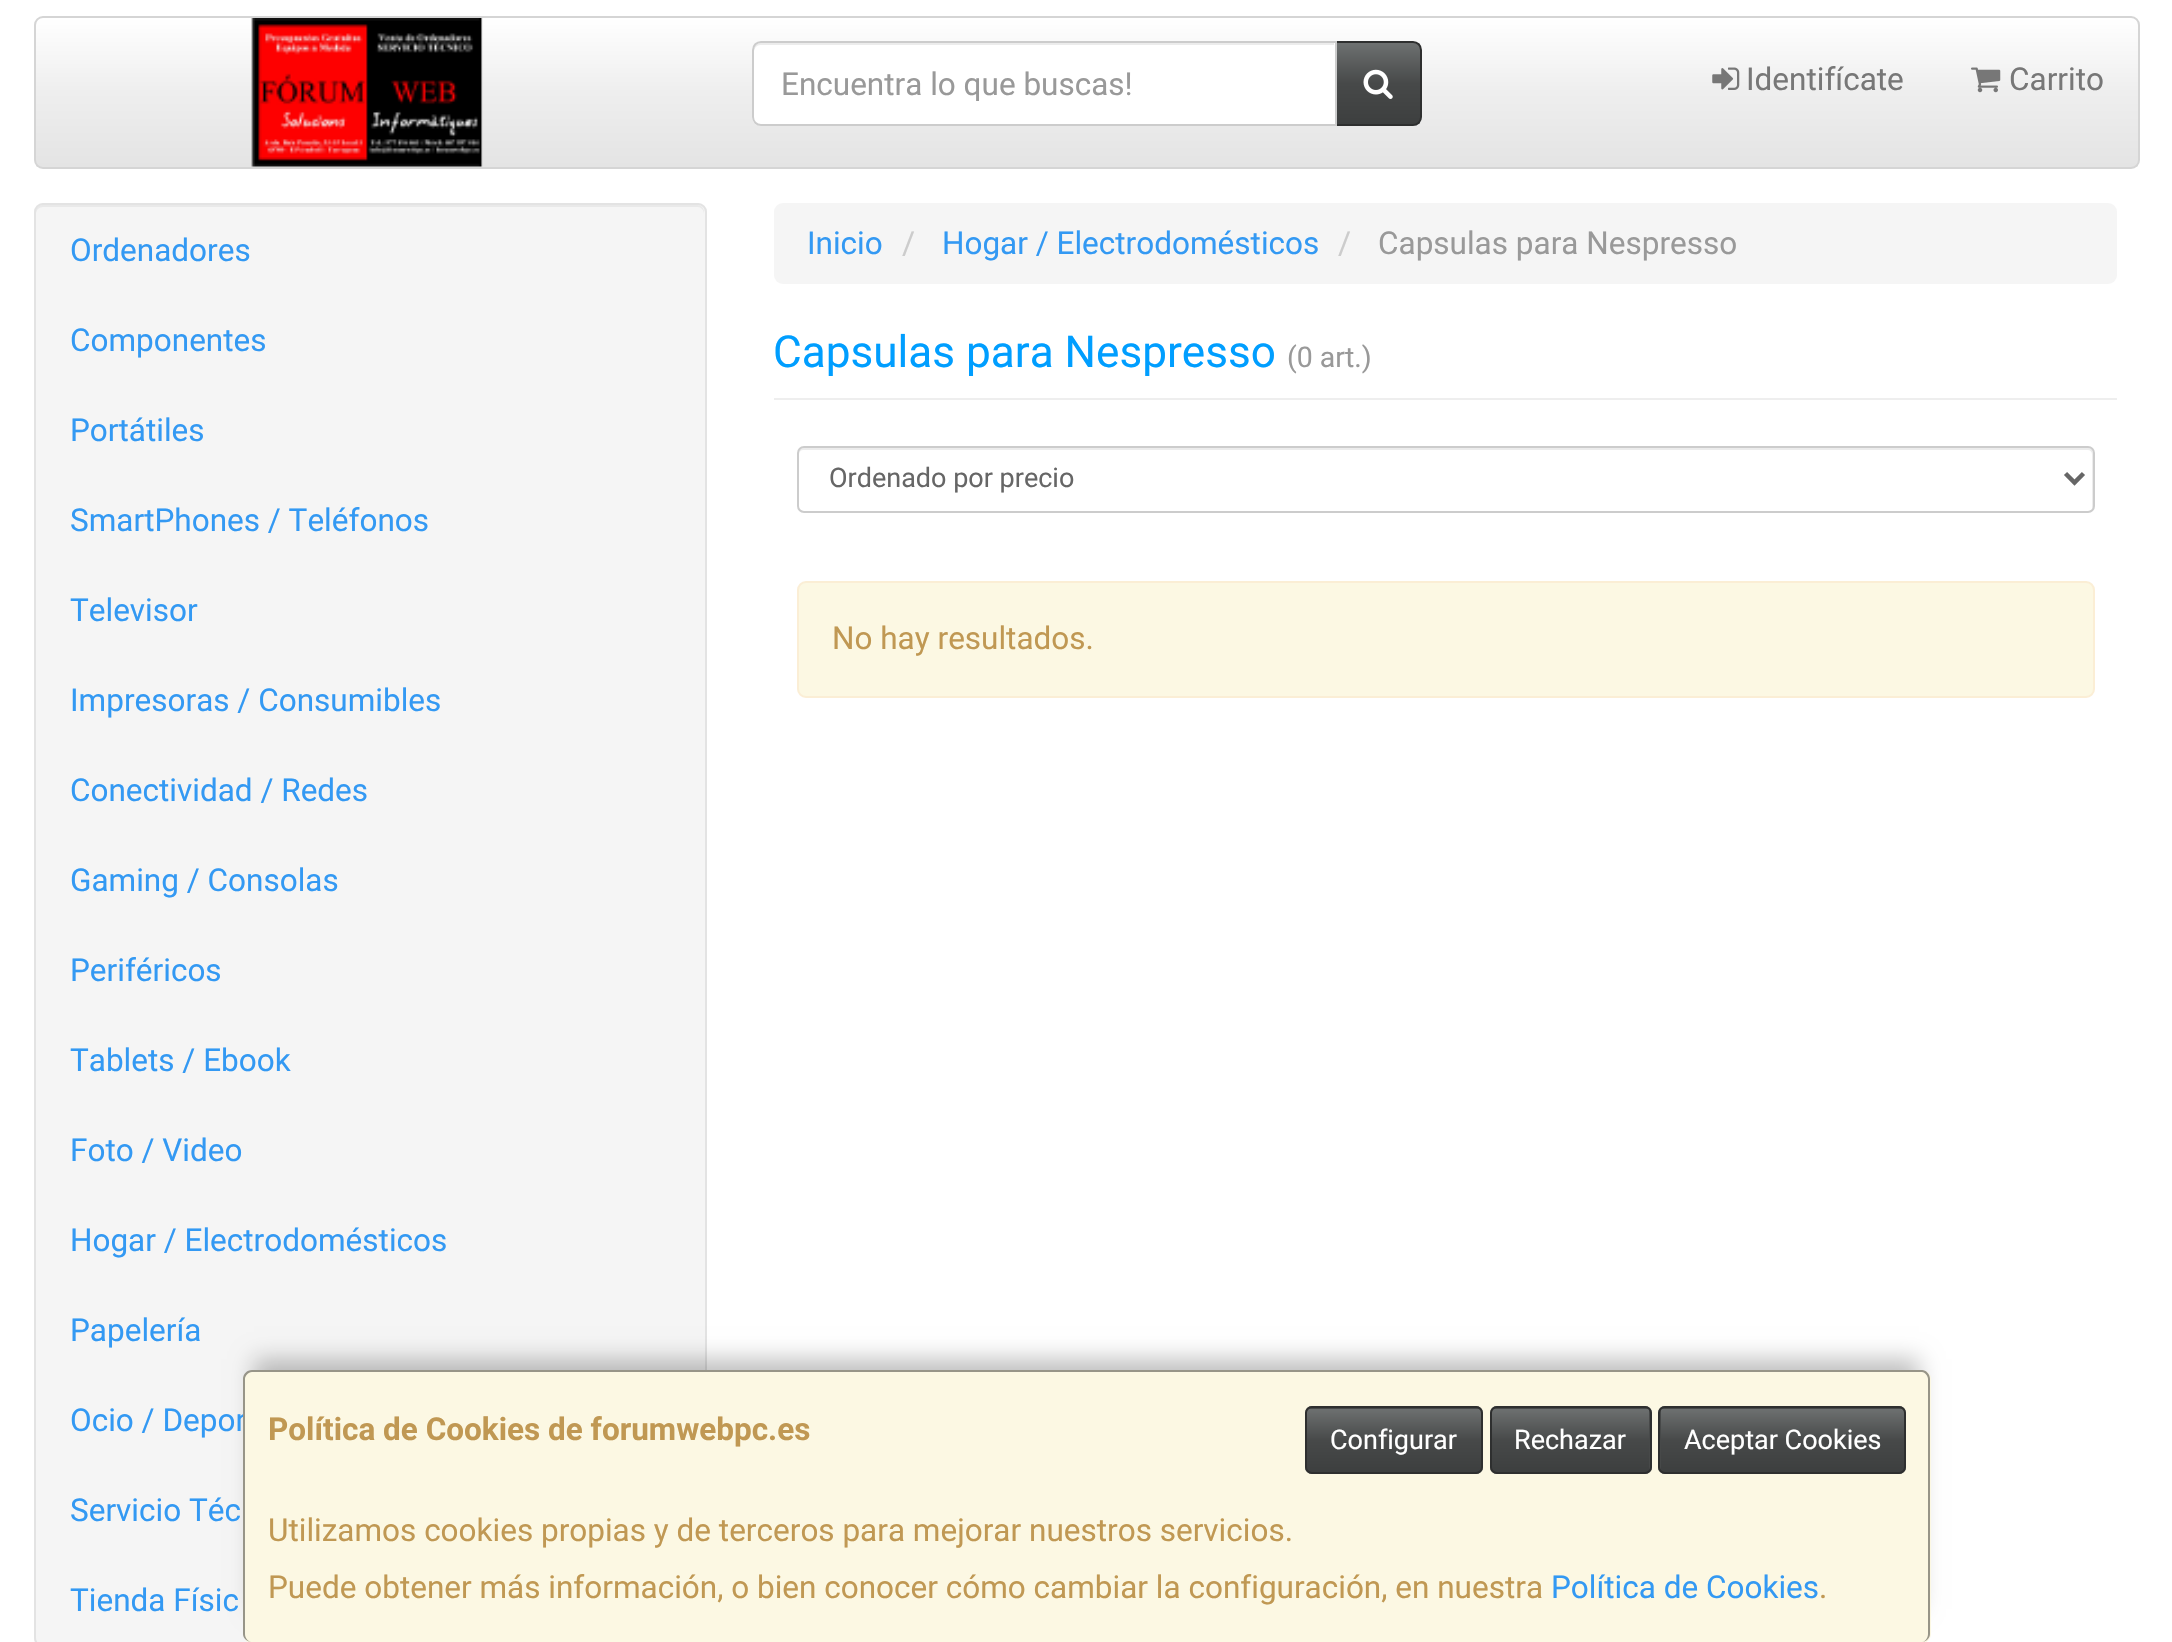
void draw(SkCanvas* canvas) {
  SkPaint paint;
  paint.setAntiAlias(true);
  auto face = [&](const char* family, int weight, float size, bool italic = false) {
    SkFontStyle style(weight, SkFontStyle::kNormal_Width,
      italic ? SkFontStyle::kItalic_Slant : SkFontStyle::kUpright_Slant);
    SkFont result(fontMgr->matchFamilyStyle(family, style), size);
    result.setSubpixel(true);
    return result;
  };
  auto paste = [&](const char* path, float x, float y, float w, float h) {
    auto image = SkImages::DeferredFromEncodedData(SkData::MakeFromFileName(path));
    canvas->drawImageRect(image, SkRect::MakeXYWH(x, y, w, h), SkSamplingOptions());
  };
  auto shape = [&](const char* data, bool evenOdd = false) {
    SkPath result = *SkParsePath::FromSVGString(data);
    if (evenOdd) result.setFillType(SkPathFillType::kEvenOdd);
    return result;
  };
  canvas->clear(0xffffffff);
  canvas->save();
  canvas->clipPath(shape("M43 16H2131C2136 16 2140 20 2140 25V160C2140 165 2136 169 2131 169H43C38 169 34 165 34 160V25C34 20 38 16 43 16Z"), true);
  {
    const SkColor colors[] = {0xffffffff, 0xffeeeeee, 0xffe4e4e4};
    const float stops[] = {0, 0.5f, 1};
    const SkPoint ends[] = {{1087, 18}, {1087, 167}};
    paint.setShader(SkGradientShader::MakeLinear(ends, colors, stops, 3, SkTileMode::kClamp));
    paint.setAlpha(255);
  }
  canvas->drawRect(SkRect::MakeXYWH(36, 18, 2102, 149), paint);
  canvas->restore();
  paint.setStroke(true);
  paint.setStrokeWidth(2);
  paint.setShader(nullptr);
  paint.setColor(0xffd5d5d5);
  canvas->drawRoundRect(SkRect::MakeXYWH(35, 17, 2104, 151), 8, 8, paint);
  paste("img/1.png", 251, 18, 232, 149);
  canvas->save();
  canvas->clipPath(shape("M1334 41H1413C1418 41 1422 45 1422 50V117C1422 122 1418 126 1413 126H1334Z"), true);
  paint.setStroke(false);
  {
    const SkColor colors[] = {0xff6d7070, 0xff474949, 0xff3d3f3f};
    const float stops[] = {0, 0.5f, 1};
    const SkPoint ends[] = {{1378, 43}, {1378, 124}};
    paint.setShader(SkGradientShader::MakeLinear(ends, colors, stops, 3, SkTileMode::kClamp));
    paint.setAlpha(255);
  }
  canvas->drawRect(SkRect::MakeXYWH(1337, 43, 83, 81), paint);
  canvas->restore();
  paint.setStroke(true);
  paint.setShader(nullptr);
  paint.setColor(0xff2e2f2f);
  canvas->drawPath(shape("M1335 42H1413C1417.5 42 1421 45.5 1421 50V117C1421 121.5 1417.5 125 1413 125H1335Z"), paint);
  paint.setStroke(false);
  paint.setColor(0xffffffff);
  canvas->drawPath(shape("M761 41H1337V126H761C756 126 752 122 752 117V50C752 45 756 41 761 41Z"), paint);
  paint.setColor(0xffececec);
  canvas->drawPath(shape("M760 45H1334V43H761C757 43 754 46 754 50V52C754 48 757 45 760 45Z"), paint);
  paint.setStroke(true);
  paint.setColor(0xffcccccc);
  canvas->drawPath(shape("M761 42H1336V125H761C756.5 125 753 121.5 753 117V50C753 45.5 756.5 42 761 42Z"), paint);
  paste("img/2.png", 1363, 69, 30, 30);
  paste("img/3.png", 1712, 67, 28, 23);
  paste("img/4.png", 1971, 67, 30, 26);
  paint.setStroke(false);
  paint.setColor(0xfff5f5f5);
  canvas->drawRoundRect(SkRect::MakeXYWH(34, 203, 673, 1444), 9, 9, paint);
  paint.setColor(0xffe9e9e9);
  canvas->drawPath(shape("M43 207H698C701 207 704 210 704 214V212C704 208 701 205 697 205H43C39 205 36 208 36 212V214C36 210 39 207 43 207Z"), paint);
  paint.setStroke(true);
  paint.setColor(0xffe3e3e3);
  canvas->drawRoundRect(SkRect::MakeXYWH(35, 204, 671, 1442), 8, 8, paint);
  paint.setStroke(false);
  paint.setColor(0xfff5f5f5);
  canvas->drawRoundRect(SkRect::MakeXYWH(774, 203, 1343, 81), 9, 9, paint);
  paint.setColor(0xffeeeeee);
  canvas->drawRect(SkRect::MakeXYWH(774, 398, 1343, 2), paint);
  paint.setColor(0xffececec);
  canvas->drawPath(shape("M803 450H2088C2090 450 2092 452 2092 454V509C2093 508 2093 507 2093 506V453C2093 450 2091 448 2088 448H804C801 448 799 450 799 453V454C799 452 801 450 803 450Z"), paint);
  paint.setStroke(true);
  paint.setColor(0xffcccccc);
  canvas->drawRoundRect(SkRect::MakeXYWH(798, 447, 1296, 65), 6, 6, paint);
  paint.setStrokeWidth(4.5f);
  paint.setColor(0xff666666);
  canvas->drawPath(shape("M2065.5 473.5L2074.5 482.5L2083.5 473.5"), paint);
  paint.setStroke(false);
  paint.setColor(0xfffcf8e3);
  canvas->drawRoundRect(SkRect::MakeXYWH(798, 582, 1296, 115), 8, 8, paint);
  paint.setStroke(true);
  paint.setStrokeWidth(2);
  paint.setColor(0xfffbeed5);
  canvas->drawRoundRect(SkRect::MakeXYWH(798, 582, 1296, 115), 8, 8, paint);
  paint.setStroke(false);
  paint.setColor(0x40000000);
  paint.setMaskFilter(SkMaskFilter::MakeBlur(kNormal_SkBlurStyle, 11));
  canvas->drawRect(SkRect::MakeXYWH(254, 1359, 1665, 250), paint);
  paint.setMaskFilter(nullptr);
  canvas->save();
  canvas->clipRect(SkRect::MakeXYWH(781, 65, 526, 36));
  auto f0 = face("Roboto", 400, 31.5f);
  paint.setColor(0xff999999);
  canvas->drawString("Encuentra lo que buscas!", 781, 95, f0, paint);
  canvas->restore();
  paint.setColor(0xff777777);
  canvas->drawString("Identifícate", 1746, 90, f0, paint);
  canvas->drawString("Carrito", 2009, 90, f0, paint);
  paint.setColor(0xff3399f3);
  {
    const struct { const char* s; float x, y; } items[] = {
      {"Ordenadores", 70, 261},
      {"Componentes", 70, 351},
      {"Portátiles", 70, 441},
      {"SmartPhones / Teléfonos", 70, 531},
      {"Televisor", 70, 621},
      {"Impresoras / Consumibles", 70, 711},
      {"Conectividad / Redes", 70, 801},
      {"Gaming / Consolas", 70, 891},
      {"Periféricos", 70, 981},
      {"Tablets / Ebook", 70, 1071},
      {"Foto / Video", 70, 1161},
      {"Hogar / Electrodomésticos", 70, 1251},
      {"Papelería", 70, 1341},
      {"Ocio / Depor", 70, 1431},
      {"Servicio Téc", 70, 1521},
      {"Tienda Físic", 70, 1611},
      {"Inicio", 807, 254},
    };
    for (auto [s, x, y] : items) {
      canvas->drawString(s, x, y, f0, paint);
    }
  }
  paint.setColor(0xffcccccc);
  canvas->drawString("/", 902, 254, f0, paint);
  paint.setColor(0xff3399f3);
  canvas->drawString("Hogar / Electrodomésticos", 942, 254, f0, paint);
  paint.setColor(0xffcccccc);
  canvas->drawString("/", 1338, 254, f0, paint);
  paint.setColor(0xff999999);
  canvas->drawString("Capsulas para Nespresso", 1378, 254, f0, paint);
  auto f1 = face("Roboto", 400, 44.1f);
  paint.setColor(0xff009eff);
  canvas->drawString("Capsulas para Nespresso", 773, 367, f1, paint);
  auto f2 = face("Roboto", 400, 28.5f);
  paint.setColor(0xff999999);
  canvas->drawString("(0 art.)", 1287, 367, f2, paint);
  auto f3 = face("Roboto", 400, 27);
  paint.setColor(0xff666666);
  canvas->drawString("Ordenado por precio", 829, 487, f3, paint);
  paint.setColor(0xffc09853);
  canvas->drawString("No hay resultados.", 832, 649, f0, paint);
  paint.setColor(0xfffcf8e3);
  canvas->drawRoundRect(SkRect::MakeXYWH(243, 1370, 1688, 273), 9, 9, paint);
  paint.setColor(0x66000000);
  canvas->drawPath(shape("M252 1370H1922C1926 1370 1930 1374 1930 1379V1634C1930 1638 1926 1642 1922 1642H252C247 1642 243 1638 243 1634V1379C243 1374 247 1370 252 1370ZM252 1372H1922C1925 1372 1928 1376 1928 1379V1634C1928 1638 1925 1642 1922 1642H252C248 1642 245 1638 245 1634V1379C245 1376 248 1372 252 1372Z", true), paint);
  auto f4 = face("Roboto", 700, 31.5f);
  paint.setColor(0xffc09853);
  canvas->drawString("Política de Cookies de forumwebpc.es", 268, 1440, f4, paint);
  paint.setColor(0xff474949);
  canvas->drawRoundRect(SkRect::MakeXYWH(1305, 1406, 178, 68), 7, 7, paint);
  {
    const SkColor colors[] = {0xff6d7070, 0xff474949, 0xff3d3f3f};
    const float stops[] = {0, 0.5f, 1};
    const SkPoint ends[] = {{1394, 1409}, {1394, 1472}};
    paint.setShader(SkGradientShader::MakeLinear(ends, colors, stops, 3, SkTileMode::kClamp));
    paint.setAlpha(255);
  }
  canvas->drawRect(SkRect::MakeXYWH(1307, 1409, 174, 63), paint);
  paint.setStroke(true);
  paint.setShader(nullptr);
  paint.setColor(0xff2e2f2f);
  canvas->drawRoundRect(SkRect::MakeXYWH(1306, 1407, 176, 66), 6, 6, paint);
  paint.setStroke(false);
  paint.setColor(0xffffffff);
  canvas->drawString("Configurar", 1330, 1449, f3, paint);
  paint.setColor(0xff474949);
  canvas->drawRoundRect(SkRect::MakeXYWH(1490, 1406, 162, 68), 7, 7, paint);
  {
    const SkColor colors[] = {0xff6d7070, 0xff474949, 0xff3d3f3f};
    const float stops[] = {0, 0.5f, 1};
    const SkPoint ends[] = {{1571, 1409}, {1571, 1472}};
    paint.setShader(SkGradientShader::MakeLinear(ends, colors, stops, 3, SkTileMode::kClamp));
    paint.setAlpha(255);
  }
  canvas->drawRect(SkRect::MakeXYWH(1492, 1409, 157, 63), paint);
  paint.setStroke(true);
  paint.setShader(nullptr);
  paint.setColor(0xff2e2f2f);
  canvas->drawRoundRect(SkRect::MakeXYWH(1491, 1407, 160, 66), 6, 6, paint);
  paint.setStroke(false);
  paint.setColor(0xffffffff);
  canvas->drawString("Rechazar", 1514, 1449, f3, paint);
  paint.setColor(0xff474949);
  canvas->drawRoundRect(SkRect::MakeXYWH(1658, 1406, 248, 68), 7, 7, paint);
  {
    const SkColor colors[] = {0xff6d7070, 0xff474949, 0xff3d3f3f};
    const float stops[] = {0, 0.5f, 1};
    const SkPoint ends[] = {{1782, 1409}, {1782, 1472}};
    paint.setShader(SkGradientShader::MakeLinear(ends, colors, stops, 3, SkTileMode::kClamp));
    paint.setAlpha(255);
  }
  canvas->drawRect(SkRect::MakeXYWH(1661, 1409, 243, 63), paint);
  paint.setStroke(true);
  paint.setShader(nullptr);
  paint.setColor(0xff2e2f2f);
  canvas->drawRoundRect(SkRect::MakeXYWH(1659, 1407, 246, 66), 6, 6, paint);
  paint.setStroke(false);
  paint.setColor(0xffffffff);
  canvas->drawString("Aceptar Cookies", 1684, 1449, f3, paint);
  paint.setColor(0xffc09853);
  canvas->drawString("Utilizamos cookies propias y de terceros para mejorar nuestros servicios.", 268, 1541, f0, paint);
  canvas->drawString("Puede obtener más información, o bien conocer cómo cambiar la configuración, en nuestra", 268, 1598, f0, paint);
  paint.setColor(0xff3399f3);
  canvas->drawString("Política de Cookies", 1551, 1598, f0, paint);
  paint.setColor(0xffc09853);
  canvas->drawString(".", 1819, 1598, f0, paint);
}
